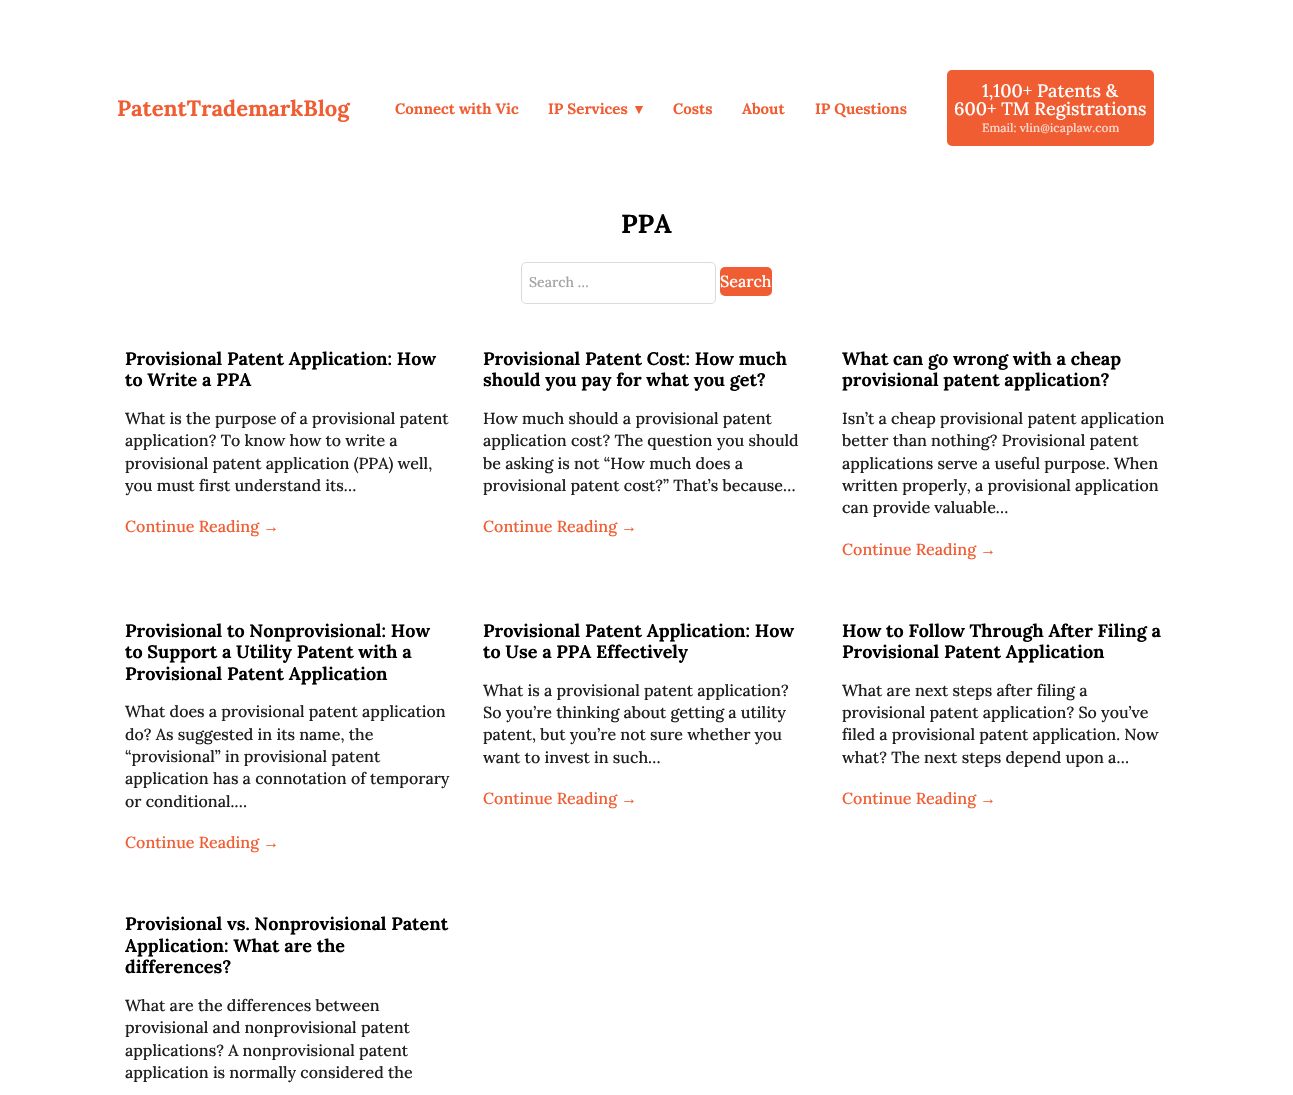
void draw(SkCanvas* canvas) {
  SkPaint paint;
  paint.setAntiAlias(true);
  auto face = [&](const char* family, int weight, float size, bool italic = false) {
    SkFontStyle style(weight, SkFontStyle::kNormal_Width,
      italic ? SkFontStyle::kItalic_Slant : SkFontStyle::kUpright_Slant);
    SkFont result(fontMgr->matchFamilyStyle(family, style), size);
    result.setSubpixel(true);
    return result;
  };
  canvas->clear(0xffffffff);
  paint.setColor(0xfff15d32);
  canvas->drawRoundRect(SkRect::MakeXYWH(947, 70, 207, 76), 5, 5, paint);
  paint.setStroke(true);
  paint.setStrokeWidth(1);
  paint.setColor(0xffdbdbdb);
  canvas->drawRoundRect(SkRect::MakeXYWH(521.5f, 262.5f, 194, 41), 4.5f, 4.5f, paint);
  paint.setStroke(false);
  paint.setColor(0xfff15d32);
  canvas->drawRoundRect(SkRect::MakeXYWH(720, 267, 52, 29), 5, 5, paint);
  auto f0 = face("Lora", 700, 22);
  canvas->drawString("PatentTrademarkBlog", 117, 116, f0, paint);
  auto f1 = face("Lora", 700, 15);
  canvas->drawString("Connect with Vic", 395, 114, f1, paint);
  canvas->drawString("IP Services", 548, 114, f1, paint);
  auto f2 = face("DejaVu Sans", 700, 15);
  canvas->drawString("▾", 635, 114, f2, paint);
  {
    const struct { const char* s; float x, y; } items[] = {
      {"Costs", 673, 114},
      {"About", 742, 114},
      {"IP Questions", 815, 114},
    };
    for (auto [s, x, y] : items) {
      canvas->drawString(s, x, y, f1, paint);
    }
  }
  auto f3 = face("Lora", 500, 18);
  paint.setColor(0xffffffff);
  canvas->drawString("1,100+ Patents &", 982, 97, f3, paint);
  canvas->drawString("600+ TM Registrations", 954, 115, f3, paint);
  auto f4 = face("Lora", 500, 12);
  paint.setColor(0xfffcd7cc);
  canvas->drawString("Email: vlin@icaplaw.com", 982, 132, f4, paint);
  auto f5 = face("Lora", 700, 26);
  paint.setColor(0xff000000);
  canvas->drawString("PPA", 621, 233, f5, paint);
  auto f6 = face("Lora", 500, 14);
  paint.setColor(0xffa4a4a4);
  canvas->drawString("Search …", 529, 287, f6, paint);
  auto f7 = face("Lora", 500, 16);
  paint.setColor(0xffffffff);
  canvas->drawString("Search", 720, 287, f7, paint);
  auto f8 = face("Lora", 700, 18);
  paint.setColor(0xff000000);
  canvas->drawString("Provisional Patent Application: How", 125, 365, f8, paint);
  canvas->drawString("to Write a PPA", 125, 386, f8, paint);
  paint.setColor(0xff1f1f1f);
  {
    const struct { const char* s; float x, y; } items[] = {
      {"What is the purpose of a provisional patent", 125, 424},
      {"application? To know how to write a", 125, 446},
      {"provisional patent application (PPA) well,", 125, 469},
      {"you must first understand its…", 125, 491},
    };
    for (auto [s, x, y] : items) {
      canvas->drawString(s, x, y, f7, paint);
    }
  }
  paint.setColor(0xfff15d32);
  canvas->drawString("Continue Reading", 125, 532, f7, paint);
  auto f9 = face("Liberation Serif", 400, 16);
  canvas->drawString("→", 263, 532, f9, paint);
  paint.setColor(0xff000000);
  canvas->drawString("Provisional Patent Cost: How much", 483, 365, f8, paint);
  canvas->drawString("should you pay for what you get?", 483, 386, f8, paint);
  paint.setColor(0xff1f1f1f);
  {
    const struct { const char* s; float x, y; } items[] = {
      {"How much should a provisional patent", 483, 424},
      {"application cost? The question you should", 483, 446},
      {"be asking is not “How much does a", 483, 469},
      {"provisional patent cost?” That’s because…", 483, 491},
    };
    for (auto [s, x, y] : items) {
      canvas->drawString(s, x, y, f7, paint);
    }
  }
  paint.setColor(0xfff15d32);
  canvas->drawString("Continue Reading", 483, 532, f7, paint);
  canvas->drawString("→", 621, 532, f9, paint);
  paint.setColor(0xff000000);
  canvas->drawString("What can go wrong with a cheap", 842, 365, f8, paint);
  canvas->drawString("provisional patent application?", 842, 386, f8, paint);
  paint.setColor(0xff1f1f1f);
  {
    const struct { const char* s; float x, y; } items[] = {
      {"Isn’t a cheap provisional patent application", 842, 424},
      {"better than nothing? Provisional patent", 842, 446},
      {"applications serve a useful purpose. When", 842, 469},
      {"written properly, a provisional application", 842, 491},
      {"can provide valuable…", 842, 513},
    };
    for (auto [s, x, y] : items) {
      canvas->drawString(s, x, y, f7, paint);
    }
  }
  paint.setColor(0xfff15d32);
  canvas->drawString("Continue Reading", 842, 555, f7, paint);
  canvas->drawString("→", 980, 555, f9, paint);
  paint.setColor(0xff000000);
  {
    const struct { const char* s; float x, y; } items[] = {
      {"Provisional to Nonprovisional: How", 125, 637},
      {"to Support a Utility Patent with a", 125, 658},
      {"Provisional Patent Application", 125, 680},
    };
    for (auto [s, x, y] : items) {
      canvas->drawString(s, x, y, f8, paint);
    }
  }
  paint.setColor(0xff1f1f1f);
  {
    const struct { const char* s; float x, y; } items[] = {
      {"What does a provisional patent application", 125, 717},
      {"do? As suggested in its name, the", 125, 740},
      {"“provisional” in provisional patent", 125, 762},
      {"application has a connotation of temporary", 125, 784},
      {"or conditional.…", 125, 807},
    };
    for (auto [s, x, y] : items) {
      canvas->drawString(s, x, y, f7, paint);
    }
  }
  paint.setColor(0xfff15d32);
  canvas->drawString("Continue Reading", 125, 848, f7, paint);
  canvas->drawString("→", 263, 848, f9, paint);
  paint.setColor(0xff000000);
  canvas->drawString("Provisional Patent Application: How", 483, 637, f8, paint);
  canvas->drawString("to Use a PPA Effectively", 483, 658, f8, paint);
  paint.setColor(0xff1f1f1f);
  {
    const struct { const char* s; float x, y; } items[] = {
      {"What is a provisional patent application?", 483, 696},
      {"So you’re thinking about getting a utility", 483, 718},
      {"patent, but you’re not sure whether you", 483, 740},
      {"want to invest in such…", 483, 763},
    };
    for (auto [s, x, y] : items) {
      canvas->drawString(s, x, y, f7, paint);
    }
  }
  paint.setColor(0xfff15d32);
  canvas->drawString("Continue Reading", 483, 804, f7, paint);
  canvas->drawString("→", 621, 804, f9, paint);
  paint.setColor(0xff000000);
  canvas->drawString("How to Follow Through After Filing a", 842, 637, f8, paint);
  canvas->drawString("Provisional Patent Application", 842, 658, f8, paint);
  paint.setColor(0xff1f1f1f);
  {
    const struct { const char* s; float x, y; } items[] = {
      {"What are next steps after filing a", 842, 696},
      {"provisional patent application? So you’ve", 842, 718},
      {"filed a provisional patent application. Now", 842, 740},
      {"what? The next steps depend upon a…", 842, 763},
    };
    for (auto [s, x, y] : items) {
      canvas->drawString(s, x, y, f7, paint);
    }
  }
  paint.setColor(0xfff15d32);
  canvas->drawString("Continue Reading", 842, 804, f7, paint);
  canvas->drawString("→", 980, 804, f9, paint);
  paint.setColor(0xff000000);
  {
    const struct { const char* s; float x, y; } items[] = {
      {"Provisional vs. Nonprovisional Patent", 125, 930},
      {"Application: What are the", 125, 952},
      {"differences?", 125, 973},
    };
    for (auto [s, x, y] : items) {
      canvas->drawString(s, x, y, f8, paint);
    }
  }
  paint.setColor(0xff1f1f1f);
  {
    const struct { const char* s; float x, y; } items[] = {
      {"What are the differences between", 125, 1011},
      {"provisional and nonprovisional patent", 125, 1033},
      {"applications? A nonprovisional patent", 125, 1056},
      {"application is normally considered the", 125, 1078},
    };
    for (auto [s, x, y] : items) {
      canvas->drawString(s, x, y, f7, paint);
    }
  }
}
